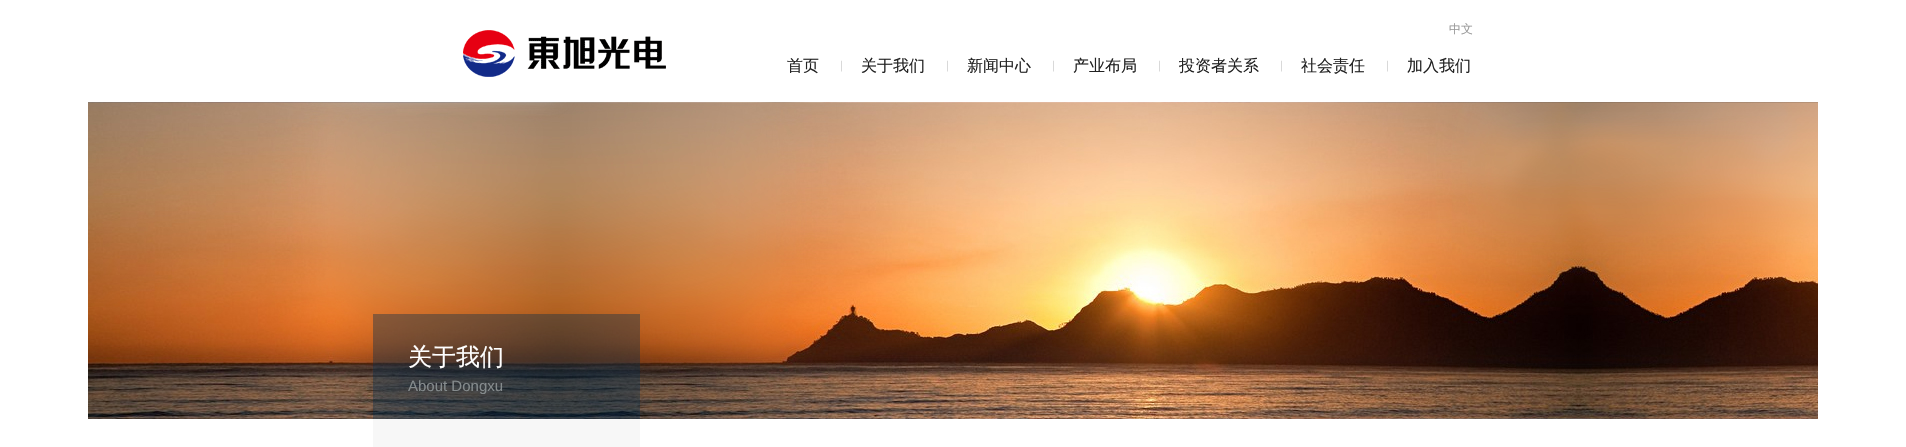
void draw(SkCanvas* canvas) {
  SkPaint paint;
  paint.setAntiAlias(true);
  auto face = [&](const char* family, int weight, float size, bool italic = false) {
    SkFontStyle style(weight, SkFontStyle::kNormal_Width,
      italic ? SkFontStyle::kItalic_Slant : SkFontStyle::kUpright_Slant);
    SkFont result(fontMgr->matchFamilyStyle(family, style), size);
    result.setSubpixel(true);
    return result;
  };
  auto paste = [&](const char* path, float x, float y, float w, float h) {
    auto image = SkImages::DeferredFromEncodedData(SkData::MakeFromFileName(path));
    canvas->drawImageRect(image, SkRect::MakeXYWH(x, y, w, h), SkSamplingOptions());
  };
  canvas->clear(0xffffffff);
  paste("img/1.png", 463, 30, 203, 47);
  paste("img/2.png", 841, 60, 1, 12);
  paste("img/2.png", 947, 60, 1, 12);
  paste("img/2.png", 1053, 60, 1, 12);
  paste("img/2.png", 1159, 60, 1, 12);
  paste("img/2.png", 1281, 60, 1, 12);
  paste("img/2.png", 1387, 60, 1, 12);
  paste("img/3.png", 88, 102, 1730, 317);
  paint.setColor(0x63032c4b);
  canvas->drawRect(SkRect::MakeXYWH(373, 314, 267, 105), paint);
  paint.setColor(0xfff7f7f7);
  canvas->drawRect(SkRect::MakeXYWH(373, 419, 267, 28), paint);
  auto f0 = face("WenQuanYi Zen Hei", 500, 12);
  paint.setColor(0xff999999);
  canvas->drawString("中文", 1449, 33, f0, paint);
  auto f1 = face("WenQuanYi Zen Hei", 500, 16);
  paint.setColor(0xff222222);
  {
    const struct { const char* s; float x, y; } items[] = {
      {"首页", 787, 71},
      {"关于我们", 861, 71},
      {"新闻中心", 967, 71},
      {"产业布局", 1073, 71},
      {"投资者关系", 1179, 71},
      {"社会责任", 1301, 71},
      {"加入我们", 1407, 71},
    };
    for (auto [s, x, y] : items) {
      canvas->drawString(s, x, y, f1, paint);
    }
  }
  auto f2 = face("WenQuanYi Zen Hei", 500, 24);
  paint.setColor(0xffffffff);
  canvas->drawString("关于我们", 408, 365, f2, paint);
  auto f3 = face("Liberation Sans", 400, 15);
  paint.setColor(0xff858b8d);
  canvas->drawString("About Dongxu", 408, 391, f3, paint);
}
